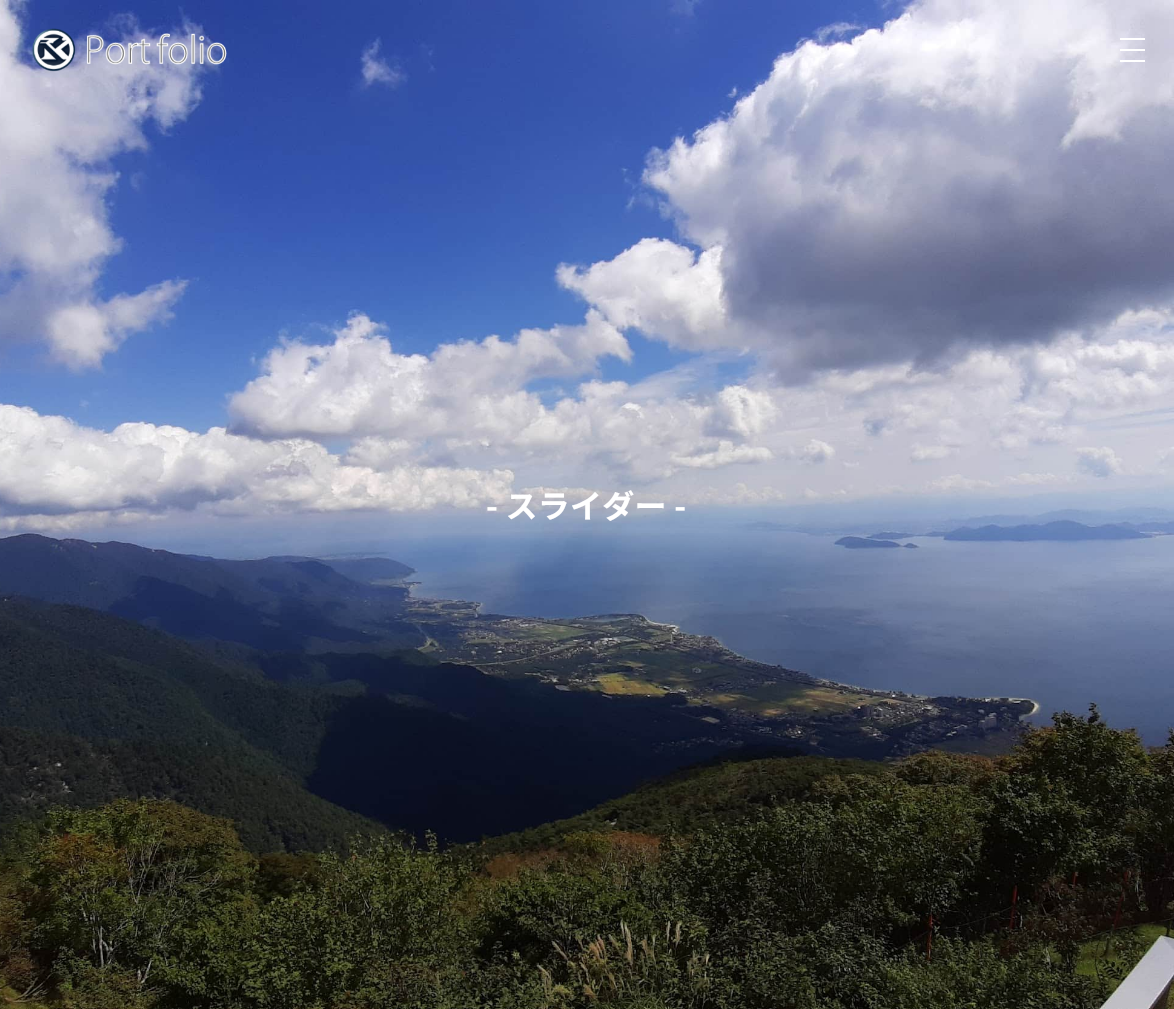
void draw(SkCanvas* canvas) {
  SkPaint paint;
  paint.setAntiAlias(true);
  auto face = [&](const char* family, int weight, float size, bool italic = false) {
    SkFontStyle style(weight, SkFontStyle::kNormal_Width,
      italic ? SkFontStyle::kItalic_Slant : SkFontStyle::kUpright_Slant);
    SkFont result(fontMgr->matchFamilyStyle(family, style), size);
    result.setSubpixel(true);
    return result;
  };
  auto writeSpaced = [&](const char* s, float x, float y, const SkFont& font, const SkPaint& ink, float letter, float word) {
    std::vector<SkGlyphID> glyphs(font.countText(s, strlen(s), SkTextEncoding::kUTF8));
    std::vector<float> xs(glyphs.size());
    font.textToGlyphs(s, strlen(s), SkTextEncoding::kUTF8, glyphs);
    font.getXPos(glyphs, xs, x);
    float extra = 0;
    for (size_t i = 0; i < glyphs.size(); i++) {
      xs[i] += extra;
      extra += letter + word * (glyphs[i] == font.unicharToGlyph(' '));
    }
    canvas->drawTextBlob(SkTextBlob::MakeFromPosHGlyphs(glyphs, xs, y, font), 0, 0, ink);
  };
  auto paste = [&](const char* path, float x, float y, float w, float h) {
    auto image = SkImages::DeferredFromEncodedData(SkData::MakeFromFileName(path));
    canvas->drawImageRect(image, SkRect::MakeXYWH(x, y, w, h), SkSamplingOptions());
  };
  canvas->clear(0xffffffff);
  paste("img/2.png", 0, 0, 1174, 1009);
  paste("img/1.png", 32, 28, 195, 44);
  {
    const struct { float x, y, w, h; SkColor color; } items[] = {
      {1120, 38, 25, 2, 0xffffffff},
      {1120, 49, 25, 2, 0xffffffff},
      {1120, 60, 25, 2, 0xffffffff},
    };
    for (auto [x, y, w, h, color] : items) {
      paint.setColor(color);
      canvas->drawRect(SkRect::MakeXYWH(x, y, w, h), paint);
    }
  }
  auto f0 = face("Noto Sans JP", 700, 32);
  writeSpaced("- スライダー -", 486, 518, f0, paint, 0.25f, 0);
}
